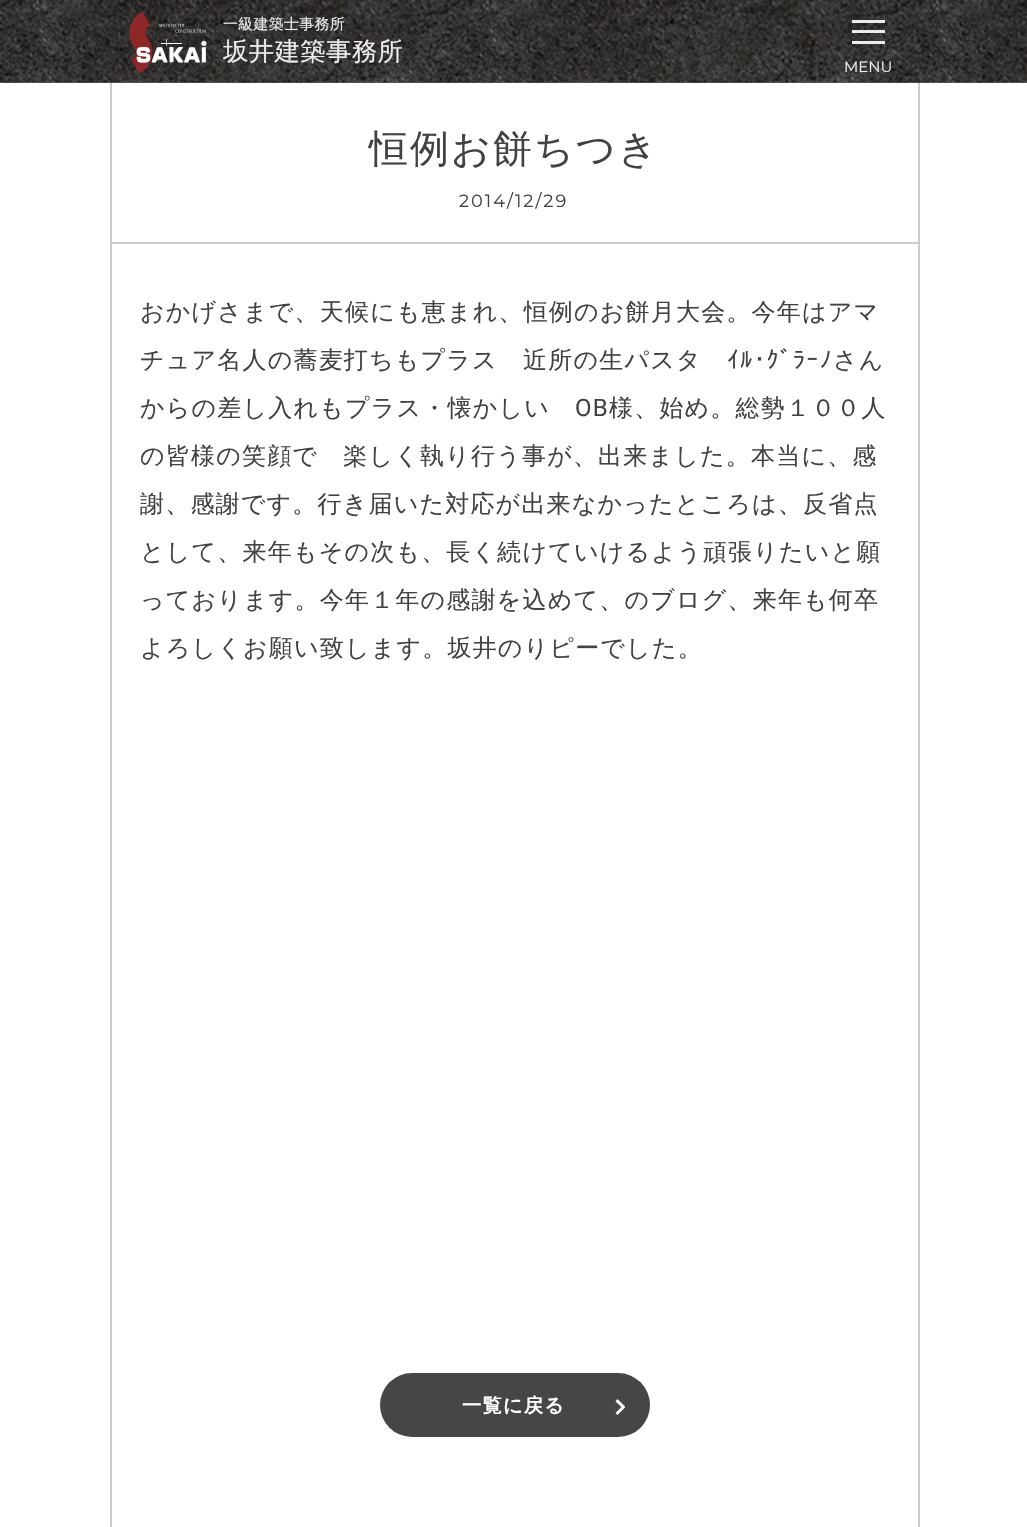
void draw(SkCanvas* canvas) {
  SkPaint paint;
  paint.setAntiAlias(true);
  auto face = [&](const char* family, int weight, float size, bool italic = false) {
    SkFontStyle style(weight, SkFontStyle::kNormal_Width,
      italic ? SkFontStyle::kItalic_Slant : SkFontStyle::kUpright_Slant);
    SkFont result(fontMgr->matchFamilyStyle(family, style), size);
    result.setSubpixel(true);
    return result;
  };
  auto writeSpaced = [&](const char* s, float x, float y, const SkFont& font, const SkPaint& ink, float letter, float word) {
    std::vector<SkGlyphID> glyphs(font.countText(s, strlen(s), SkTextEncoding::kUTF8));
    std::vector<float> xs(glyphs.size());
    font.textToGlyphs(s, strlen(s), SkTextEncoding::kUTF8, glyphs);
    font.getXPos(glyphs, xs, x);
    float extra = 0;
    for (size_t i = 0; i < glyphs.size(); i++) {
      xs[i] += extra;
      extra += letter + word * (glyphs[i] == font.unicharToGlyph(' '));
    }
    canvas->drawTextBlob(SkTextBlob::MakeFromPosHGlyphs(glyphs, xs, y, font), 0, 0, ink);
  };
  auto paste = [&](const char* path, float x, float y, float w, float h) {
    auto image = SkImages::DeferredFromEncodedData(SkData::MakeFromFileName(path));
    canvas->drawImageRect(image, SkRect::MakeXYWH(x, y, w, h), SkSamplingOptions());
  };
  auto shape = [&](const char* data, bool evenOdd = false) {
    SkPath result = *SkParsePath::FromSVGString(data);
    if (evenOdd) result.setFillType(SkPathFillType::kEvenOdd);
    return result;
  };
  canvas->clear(0xffffffff);
  {
    const struct { float x, y, w, h; SkColor color; } items[] = {
      {0, 82, 1027, 1, 0xff646464},
      {918, 82, 2, 1, 0xff555555},
      {110, 82, 2, 1, 0xff555555},
    };
    for (auto [x, y, w, h, color] : items) {
      paint.setColor(color);
      canvas->drawRect(SkRect::MakeXYWH(x, y, w, h), paint);
    }
  }
  paste("img/1.png", 0, 0, 1027, 83);
  paste("img/2.png", 129, 11, 78, 63);
  {
    const struct { float x, y, w, h; SkColor color; } items[] = {
      {852, 20, 33, 3, 0xffebebeb},
      {852, 30, 33, 3, 0xffebebeb},
      {852, 41, 33, 3, 0xffebebeb},
      {918, 83, 2, 1444, 0xffcccccc},
      {110, 83, 2, 1444, 0xffcccccc},
      {111, 242, 807, 2, 0xffcccccc},
    };
    for (auto [x, y, w, h, color] : items) {
      paint.setColor(color);
      canvas->drawRect(SkRect::MakeXYWH(x, y, w, h), paint);
    }
  }
  paint.setColor(0xff464646);
  canvas->drawRoundRect(SkRect::MakeXYWH(380, 1373, 270, 64), 32, 32, paint);
  paint.setColor(0xffffffff);
  canvas->drawPath(shape("M617.5 1399L625 1406.5L623 1408.5L615.5 1401.5Z"), paint);
  canvas->drawPath(shape("M623 1405.5L625 1407.5L617.5 1415L615.5 1413Z"), paint);
  auto f0 = face("WenQuanYi Zen Hei", 500, 15);
  paint.setColor(0xffededed);
  writeSpaced("一級建築士事務所", 223, 29, f0, paint, 0.25f, 0);
  auto f1 = face("WenQuanYi Zen Hei", 500, 25.5f);
  writeSpaced("坂井建築事務所", 223, 60, f1, paint, 0.25f, 0);
  auto f2 = face("Montserrat", 400, 15);
  canvas->drawString("MENU", 844, 72, f2, paint);
  auto f3 = face("WenQuanYi Zen Hei", 500, 39);
  paint.setColor(0xff424242);
  writeSpaced("恒例お餅ちつき", 369, 162, f3, paint, 2, 0);
  auto f4 = face("Montserrat", 400, 17.75f);
  writeSpaced("2014/12/29", 459, 207, f4, paint, 2, 0);
  auto f5 = face("WenQuanYi Zen Hei", 500, 24);
  writeSpaced("おかげさまで、天候にも恵まれ、恒例のお餅月大会。今年はアマ", 140, 320, f5, paint, 1.2f, 0);
  writeSpaced("チュア名人の蕎麦打ちもプラス　近所の生パスタ", 140, 368, f5, paint, 1.2f, 0);
  auto f6 = face("IPAPGothic", 400, 24);
  writeSpaced("ｲﾙ･ｸﾞﾗｰﾉ", 727, 368, f6, paint, 1.2f, 0);
  writeSpaced("さん", 833, 368, f5, paint, 1.2f, 0);
  writeSpaced("からの差し入れもプラス・懐かしい", 140, 416, f5, paint, 1.2f, 0);
  auto f7 = face("Roboto", 400, 24);
  writeSpaced("OB", 575, 416, f7, paint, 1.2f, 0);
  {
    const struct { const char* s; float x, y; } items[] = {
      {"様、始め。総勢１００人", 609, 416},
      {"の皆様の笑顔で　楽しく執り行う事が、出来ました。本当に、感", 140, 464},
      {"謝、感謝です。行き届いた対応が出来なかったところは、反省点", 140, 512},
      {"として、来年もその次も、長く続けていけるよう頑張りたいと願", 140, 560},
      {"っております。今年１年の感謝を込めて、のブログ、来年も何卒", 140, 608},
      {"よろしくお願い致します。坂井のりピーでした。", 140, 656},
    };
    for (auto [s, x, y] : items) {
      writeSpaced(s, x, y, f5, paint, 1.2f, 0);
    }
  }
  auto f8 = face("WenQuanYi Zen Hei", 700, 19.25f);
  paint.setColor(0xffffffff);
  writeSpaced("一覧に戻る", 462, 1412, f8, paint, 1.2f, 0);
}
